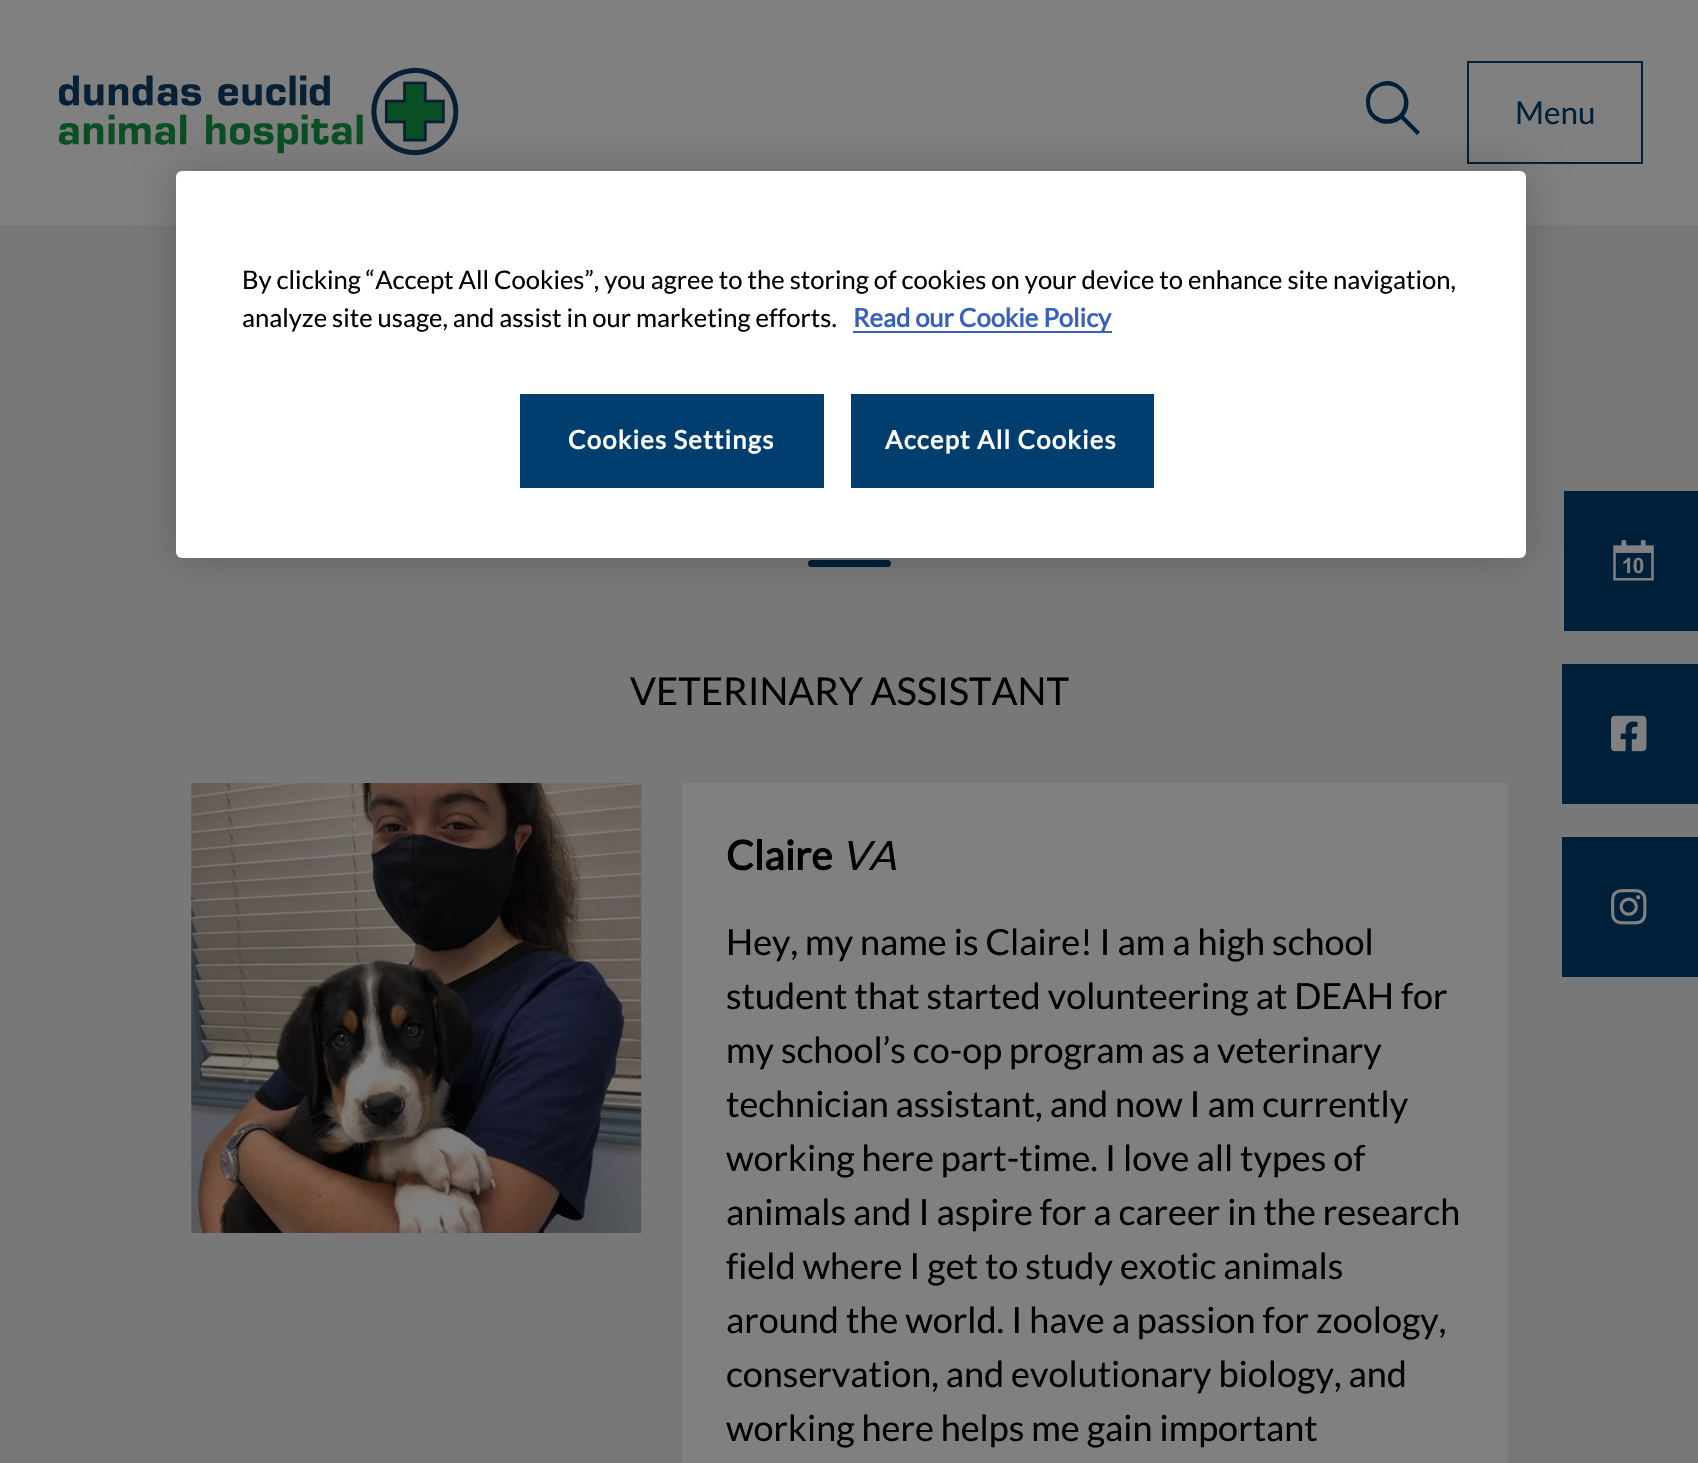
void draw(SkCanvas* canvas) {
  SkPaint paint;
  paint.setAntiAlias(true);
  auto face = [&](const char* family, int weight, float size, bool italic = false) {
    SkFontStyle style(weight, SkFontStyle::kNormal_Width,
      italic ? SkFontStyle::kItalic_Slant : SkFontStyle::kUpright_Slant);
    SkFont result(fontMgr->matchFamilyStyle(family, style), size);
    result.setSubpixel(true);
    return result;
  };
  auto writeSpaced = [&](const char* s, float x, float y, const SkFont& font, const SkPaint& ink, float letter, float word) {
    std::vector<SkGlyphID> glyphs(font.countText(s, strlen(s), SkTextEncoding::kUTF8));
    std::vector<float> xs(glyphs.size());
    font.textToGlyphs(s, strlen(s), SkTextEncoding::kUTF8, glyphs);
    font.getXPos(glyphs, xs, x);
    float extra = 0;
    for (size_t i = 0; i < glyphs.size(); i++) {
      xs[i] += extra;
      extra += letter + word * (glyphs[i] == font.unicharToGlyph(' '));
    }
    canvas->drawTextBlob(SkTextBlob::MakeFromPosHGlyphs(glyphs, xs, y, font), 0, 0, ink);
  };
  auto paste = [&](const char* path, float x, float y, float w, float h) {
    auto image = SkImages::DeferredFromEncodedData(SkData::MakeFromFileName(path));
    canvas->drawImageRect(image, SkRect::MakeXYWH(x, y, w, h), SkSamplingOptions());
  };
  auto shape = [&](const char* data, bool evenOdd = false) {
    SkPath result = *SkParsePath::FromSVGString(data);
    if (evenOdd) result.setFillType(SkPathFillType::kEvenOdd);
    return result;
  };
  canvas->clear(0xff808080);
  paste("img/1.png", 58, 67, 401, 89);
  paint.setColor(0xff001f38);
  canvas->drawPath(shape("M1420 132L1404 116C1418 98 1397 72 1377 84C1372 86 1369 90 1367 95C1365 101 1366 108 1369 114C1376 125 1391 127 1401 119L1417 135ZM1370 102C1370 80 1404 80 1404 102C1404 125 1370 125 1370 102Z"), paint);
  paint.setStroke(true);
  paint.setStrokeWidth(2);
  canvas->drawRect(SkRect::MakeXYWH(1468, 62, 174, 101), paint);
  paint.setStroke(false);
  paint.setColor(0xff787878);
  canvas->drawRect(SkRect::MakeXYWH(0, 225, 1698, 1238), paint);
  paint.setColor(0xff001f38);
  canvas->drawRoundRect(SkRect::MakeXYWH(808, 560, 83, 7), 3.5f, 3.5f, paint);
  paste("img/2.png", 191, 783, 451, 450);
  {
    const struct { float x, y, w, h; SkColor color; } items[] = {
      {682, 783, 826, 680, 0xff808080},
      {1569, 496, 129, 130, 0xff001f38},
      {1564, 491, 134, 5, 0xff001f38},
      {1564, 626, 134, 5, 0xff001f38},
      {1564, 491, 5, 139, 0xff001f38},
    };
    for (auto [x, y, w, h, color] : items) {
      paint.setColor(color);
      canvas->drawRect(SkRect::MakeXYWH(x, y, w, h), paint);
    }
  }
  paste("img/3.png", 1613, 540, 41, 41);
  {
    const struct { float x, y, w, h; SkColor color; } items[] = {
      {1567, 669, 131, 130, 0xff001f38},
      {1562, 664, 136, 5, 0xff001f38},
      {1562, 799, 136, 5, 0xff001f38},
      {1562, 664, 5, 139, 0xff001f38},
    };
    for (auto [x, y, w, h, color] : items) {
      paint.setColor(color);
      canvas->drawRect(SkRect::MakeXYWH(x, y, w, h), paint);
    }
  }
  paste("img/4.png", 1611, 715, 36, 37);
  {
    const struct { float x, y, w, h; SkColor color; } items[] = {
      {1567, 842, 131, 130, 0xff001f38},
      {1562, 837, 136, 5, 0xff001f38},
      {1562, 972, 136, 5, 0xff001f38},
      {1562, 837, 5, 140, 0xff001f38},
    };
    for (auto [x, y, w, h, color] : items) {
      paint.setColor(color);
      canvas->drawRect(SkRect::MakeXYWH(x, y, w, h), paint);
    }
  }
  paste("img/5.png", 1611, 889, 36, 36);
  paint.setColor(0x33000000);
  paint.setMaskFilter(SkMaskFilter::MakeBlur(kNormal_SkBlurStyle, 20));
  canvas->drawRoundRect(SkRect::MakeXYWH(176, 171, 1350, 387), 6, 6, paint);
  paint.setMaskFilter(nullptr);
  paint.setColor(0xffffffff);
  canvas->drawRoundRect(SkRect::MakeXYWH(176, 171, 1350, 387), 6, 6, paint);
  {
    const struct { float x, y, w, h; SkColor color; } items[] = {
      {853, 331, 259, 2, 0xff3860be},
      {520, 394, 304, 94, 0xff003e6f},
      {851, 394, 303, 94, 0xff003e6f},
    };
    for (auto [x, y, w, h, color] : items) {
      paint.setColor(color);
      canvas->drawRect(SkRect::MakeXYWH(x, y, w, h), paint);
    }
  }
  auto f0 = face("Lato", 400, 31.5f);
  paint.setColor(0xff001f38);
  canvas->drawString("Menu", 1515, 124, f0, paint);
  auto f1 = face("Lato", 400, 38.25f);
  paint.setColor(0xff000000);
  canvas->drawString("VETERINARY ASSISTANT", 630, 705, f1, paint);
  auto f2 = face("Lato", 700, 40.5f);
  canvas->drawString("Claire", 726, 870, f2, paint);
  auto f3 = face("Lato", 400, 40.5f, true);
  canvas->drawString("VA", 841, 870, f3, paint);
  auto f4 = face("Lato", 400, 36);
  {
    const struct { const char* s; float x, y; } items[] = {
      {"Hey, my name is Claire! I am a high school", 726, 955},
      {"student that started volunteering at DEAH for", 726, 1009},
      {"my school’s co-op program as a veterinary", 726, 1063},
      {"technician assistant, and now I am currently", 726, 1117},
      {"working here part-time. I love all types of", 726, 1171},
      {"animals and I aspire for a career in the research", 726, 1225},
      {"field where I get to study exotic animals", 726, 1279},
      {"around the world. I have a passion for zoology,", 726, 1333},
      {"conservation, and evolutionary biology, and", 726, 1387},
      {"working here helps me gain important", 726, 1441},
    };
    for (auto [s, x, y] : items) {
      canvas->drawString(s, x, y, f4, paint);
    }
  }
  auto f5 = face("Lato", 400, 25.6f);
  canvas->drawString("By clicking “Accept All Cookies”, you agree to the storing of cookies on your device to enhance site navigation,", 242, 289, f5, paint);
  canvas->drawString("analyze site usage, and assist in our marketing efforts.", 242, 327, f5, paint);
  auto f6 = face("Lato", 700, 25.6f);
  paint.setColor(0xff3860be);
  canvas->drawString("Read our Cookie Policy", 853, 327, f6, paint);
  paint.setColor(0xffffffff);
  writeSpaced("Cookies Settings", 568, 449, f6, paint, 1.25f, 0);
  writeSpaced("Accept All Cookies", 885, 449, f6, paint, 1.25f, 0);
}
